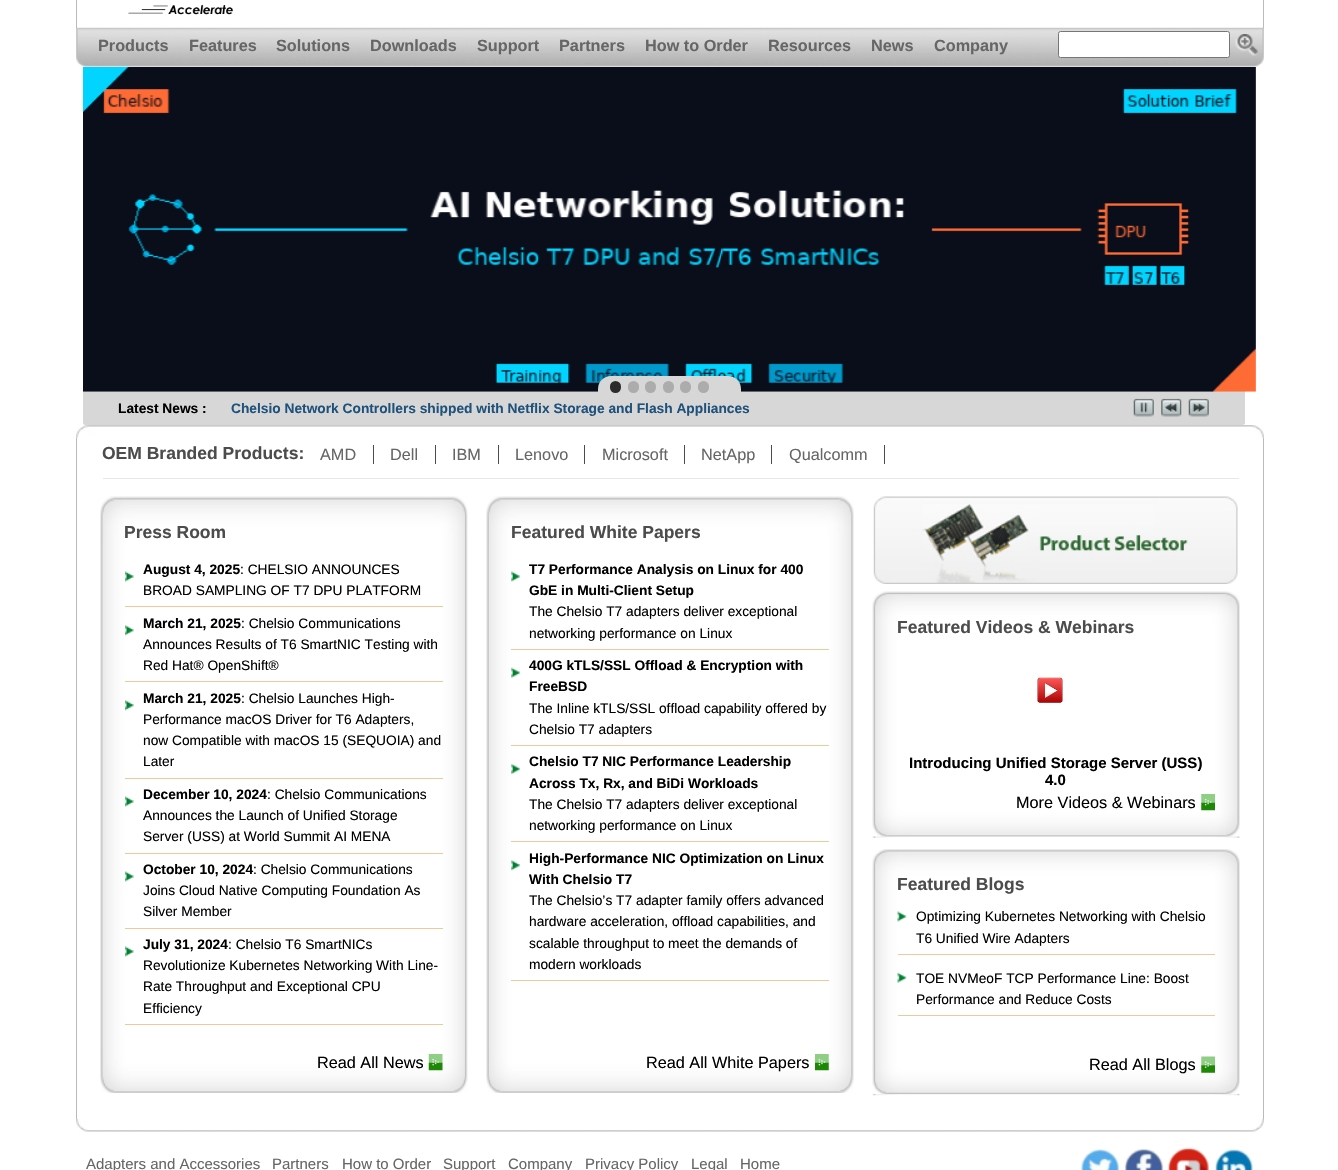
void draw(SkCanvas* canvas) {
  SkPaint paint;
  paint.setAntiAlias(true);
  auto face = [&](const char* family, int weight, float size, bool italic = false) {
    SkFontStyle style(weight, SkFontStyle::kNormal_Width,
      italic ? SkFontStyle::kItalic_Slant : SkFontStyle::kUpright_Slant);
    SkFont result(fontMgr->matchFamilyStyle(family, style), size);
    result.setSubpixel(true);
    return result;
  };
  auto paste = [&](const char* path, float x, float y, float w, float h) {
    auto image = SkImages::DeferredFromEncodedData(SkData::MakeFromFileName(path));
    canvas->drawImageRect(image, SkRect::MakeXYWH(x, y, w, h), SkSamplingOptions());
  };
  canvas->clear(0xffffffff);
  paste("img/2.png", 76, 27, 1188, 40);
  paint.setColor(0xffbababa);
  canvas->drawRect(SkRect::MakeXYWH(1263, 0, 1, 28), paint);
  canvas->drawRect(SkRect::MakeXYWH(76, 0, 1, 28), paint);
  paste("img/1.png", 128, 5, 105, 10);
  paint.setColor(0xffffffff);
  canvas->drawRoundRect(SkRect::MakeXYWH(1058.5f, 31.5f, 171, 26), 2, 2, paint);
  paint.setStroke(true);
  paint.setStrokeWidth(1);
  paint.setColor(0xff767676);
  canvas->drawRoundRect(SkRect::MakeXYWH(1058.5f, 31.5f, 171, 26), 2, 2, paint);
  paste("img/3.png", 1235, 34, 23, 22);
  paint.setStroke(false);
  paint.setColor(0xffd7d7d7);
  canvas->drawRoundRect(SkRect::MakeXYWH(83, 386, 1162, 39), 2.5f, 2.5f, paint);
  paste("img/4.png", 83, 67, 1173, 325);
  canvas->drawRoundRect(SkRect::MakeXYWH(598, 376, 143, 34), 13, 13, paint);
  paint.setColor(0xff2b2b2b);
  canvas->drawRoundRect(SkRect::MakeXYWH(610, 381, 11, 12), 5.5f, 5.5f, paint);
  paint.setColor(0xffacacac);
  canvas->drawRoundRect(SkRect::MakeXYWH(628, 381, 11, 12), 5.5f, 5.5f, paint);
  canvas->drawRoundRect(SkRect::MakeXYWH(645, 381, 11, 12), 5.5f, 5.5f, paint);
  canvas->drawRoundRect(SkRect::MakeXYWH(663, 381, 11, 12), 5.5f, 5.5f, paint);
  canvas->drawRoundRect(SkRect::MakeXYWH(680, 381, 11, 12), 5.5f, 5.5f, paint);
  canvas->drawRoundRect(SkRect::MakeXYWH(698, 381, 11, 12), 5.5f, 5.5f, paint);
  paste("img/5.png", 1133, 398, 21, 19);
  paste("img/6.png", 1161, 398, 21, 19);
  paste("img/7.png", 1188, 398, 21, 19);
  paste("img/8.png", 76, 425, 1188, 13);
  {
    const struct { float x, y, w, h; SkColor color; } items[] = {
      {1263, 438, 1, 681, 0xffbababa},
      {76, 438, 1, 681, 0xffbababa},
      {373, 445, 1, 19, 0xff4c4c4c},
      {435, 445, 1, 19, 0xff4c4c4c},
      {498, 445, 1, 19, 0xff4c4c4c},
      {584, 445, 1, 19, 0xff4c4c4c},
      {684, 445, 1, 19, 0xff4c4c4c},
      {771, 445, 1, 19, 0xff4c4c4c},
      {884, 445, 1, 19, 0xff4c4c4c},
      {103, 478, 1136, 1, 0xffe7e7e7},
    };
    for (auto [x, y, w, h, color] : items) {
      paint.setColor(color);
      canvas->drawRect(SkRect::MakeXYWH(x, y, w, h), paint);
    }
  }
  paste("img/9.png", 100, 496, 368, 597);
  paste("img/10.png", 125, 571, 9, 11);
  paint.setColor(0xffefc999);
  canvas->drawRect(SkRect::MakeXYWH(125, 606, 318, 1), paint);
  paste("img/11.png", 125, 625, 9, 11);
  canvas->drawRect(SkRect::MakeXYWH(125, 681, 318, 1), paint);
  paste("img/11.png", 125, 700, 9, 11);
  canvas->drawRect(SkRect::MakeXYWH(125, 778, 318, 1), paint);
  paste("img/10.png", 125, 796, 9, 11);
  canvas->drawRect(SkRect::MakeXYWH(125, 853, 318, 1), paint);
  paste("img/10.png", 125, 871, 9, 11);
  canvas->drawRect(SkRect::MakeXYWH(125, 928, 318, 1), paint);
  paste("img/10.png", 125, 946, 9, 11);
  canvas->drawRect(SkRect::MakeXYWH(125, 1024, 318, 1), paint);
  paste("img/12.png", 428, 1054, 15, 17);
  paste("img/13.png", 486, 496, 368, 597);
  paste("img/14.png", 511, 571, 9, 11);
  canvas->drawRect(SkRect::MakeXYWH(511, 649, 318, 1), paint);
  paste("img/15.png", 511, 667, 9, 11);
  canvas->drawRect(SkRect::MakeXYWH(511, 745, 318, 1), paint);
  paste("img/16.png", 511, 764, 9, 10);
  canvas->drawRect(SkRect::MakeXYWH(511, 841, 318, 1), paint);
  paste("img/17.png", 511, 860, 9, 11);
  canvas->drawRect(SkRect::MakeXYWH(511, 980, 318, 1), paint);
  paste("img/18.png", 815, 1054, 14, 17);
  paste("img/19.png", 873, 496, 365, 88);
  paste("img/20.png", 872, 591, 368, 247);
  paste("img/21.png", 1037, 677, 26, 26);
  paste("img/22.png", 1201, 794, 14, 17);
  paste("img/23.png", 872, 849, 368, 247);
  paste("img/24.png", 897, 911, 10, 11);
  canvas->drawRect(SkRect::MakeXYWH(898, 954, 317, 1), paint);
  paste("img/25.png", 897, 972, 10, 11);
  canvas->drawRect(SkRect::MakeXYWH(898, 1015, 317, 1), paint);
  paste("img/26.png", 1201, 1056, 14, 17);
  paste("img/27.png", 76, 1119, 1188, 13);
  paste("img/28.png", 1081, 1147, 172, 23);
  auto f0 = face("Liberation Sans", 700, 16.25f);
  paint.setColor(0xff666666);
  {
    const struct { const char* s; float x, y; } items[] = {
      {"Products", 98, 51},
      {"Features", 189, 51},
      {"Solutions", 276, 51},
      {"Downloads", 370, 51},
      {"Support", 477, 51},
      {"Partners", 559, 51},
      {"How to Order", 645, 51},
      {"Resources", 768, 51},
      {"News", 871, 51},
      {"Company", 934, 51},
    };
    for (auto [s, x, y] : items) {
      canvas->drawString(s, x, y, f0, paint);
    }
  }
  auto f1 = face("Liberation Sans", 700, 13.75f);
  paint.setColor(0xff000000);
  canvas->drawString("Latest News :", 118, 413, f1, paint);
  paint.setColor(0xff1f527b);
  canvas->drawString("Chelsio Network Controllers shipped with Netflix Storage and Flash Appliances", 231, 413, f1, paint);
  auto f2 = face("Liberation Sans", 700, 17.5f);
  paint.setColor(0xff4c4c4c);
  canvas->drawString("OEM Branded Products:", 102, 459, f2, paint);
  auto f3 = face("Liberation Sans", 400, 16.25f);
  paint.setColor(0xff666666);
  {
    const struct { const char* s; float x, y; } items[] = {
      {"AMD", 320, 460},
      {"Dell", 390, 460},
      {"IBM", 452, 460},
      {"Lenovo", 515, 460},
      {"Microsoft", 602, 460},
      {"NetApp", 701, 460},
      {"Qualcomm", 789, 460},
    };
    for (auto [s, x, y] : items) {
      canvas->drawString(s, x, y, f3, paint);
    }
  }
  paint.setColor(0xff4c4c4c);
  canvas->drawString("Press Room", 124, 538, f2, paint);
  paint.setColor(0xff000000);
  canvas->drawString("August 4, 2025", 143, 574, f1, paint);
  auto f4 = face("Liberation Sans", 400, 13.75f);
  canvas->drawString(": CHELSIO ANNOUNCES", 240, 574, f4, paint);
  canvas->drawString("BROAD SAMPLING OF T7 DPU PLATFORM", 143, 595, f4, paint);
  canvas->drawString("March 21, 2025", 143, 628, f1, paint);
  {
    const struct { const char* s; float x, y; } items[] = {
      {": Chelsio Communications", 241, 628},
      {"Announces Results of T6 SmartNIC Testing with", 143, 649},
      {"Red Hat® OpenShift®", 143, 670},
    };
    for (auto [s, x, y] : items) {
      canvas->drawString(s, x, y, f4, paint);
    }
  }
  canvas->drawString("March 21, 2025", 143, 703, f1, paint);
  {
    const struct { const char* s; float x, y; } items[] = {
      {": Chelsio Launches High-", 241, 703},
      {"Performance macOS Driver for T6 Adapters,", 143, 724},
      {"now Compatible with macOS 15 (SEQUOIA) and", 143, 745},
      {"Later", 143, 766},
    };
    for (auto [s, x, y] : items) {
      canvas->drawString(s, x, y, f4, paint);
    }
  }
  canvas->drawString("December 10, 2024", 143, 799, f1, paint);
  {
    const struct { const char* s; float x, y; } items[] = {
      {": Chelsio Communications", 267, 799},
      {"Announces the Launch of Unified Storage", 143, 820},
      {"Server (USS) at World Summit AI MENA", 143, 841},
    };
    for (auto [s, x, y] : items) {
      canvas->drawString(s, x, y, f4, paint);
    }
  }
  canvas->drawString("October 10, 2024", 143, 874, f1, paint);
  {
    const struct { const char* s; float x, y; } items[] = {
      {": Chelsio Communications", 253, 874},
      {"Joins Cloud Native Computing Foundation As", 143, 895},
      {"Silver Member", 143, 916},
    };
    for (auto [s, x, y] : items) {
      canvas->drawString(s, x, y, f4, paint);
    }
  }
  canvas->drawString("July 31, 2024", 143, 949, f1, paint);
  {
    const struct { const char* s; float x, y; } items[] = {
      {": Chelsio T6 SmartNICs", 228, 949},
      {"Revolutionize Kubernetes Networking With Line-", 143, 970},
      {"Rate Throughput and Exceptional CPU", 143, 991},
      {"Efficiency", 143, 1013},
    };
    for (auto [s, x, y] : items) {
      canvas->drawString(s, x, y, f4, paint);
    }
  }
  canvas->drawString("Read All News", 317, 1068, f3, paint);
  paint.setColor(0xff4c4c4c);
  canvas->drawString("Featured White Papers", 511, 538, f2, paint);
  paint.setColor(0xff000000);
  canvas->drawString("T7 Performance Analysis on Linux for 400", 529, 574, f1, paint);
  canvas->drawString("GbE in Multi-Client Setup", 529, 595, f1, paint);
  canvas->drawString("The Chelsio T7 adapters deliver exceptional", 529, 616, f4, paint);
  canvas->drawString("networking performance on Linux", 529, 638, f4, paint);
  canvas->drawString("400G kTLS/SSL Offload & Encryption with", 529, 670, f1, paint);
  canvas->drawString("FreeBSD", 529, 691, f1, paint);
  canvas->drawString("The Inline kTLS/SSL offload capability offered by", 529, 713, f4, paint);
  canvas->drawString("Chelsio T7 adapters", 529, 734, f4, paint);
  canvas->drawString("Chelsio T7 NIC Performance Leadership", 529, 766, f1, paint);
  canvas->drawString("Across Tx, Rx, and BiDi Workloads", 529, 788, f1, paint);
  canvas->drawString("The Chelsio T7 adapters deliver exceptional", 529, 809, f4, paint);
  canvas->drawString("networking performance on Linux", 529, 830, f4, paint);
  canvas->drawString("High-Performance NIC Optimization on Linux", 529, 863, f1, paint);
  canvas->drawString("With Chelsio T7", 529, 884, f1, paint);
  {
    const struct { const char* s; float x, y; } items[] = {
      {"The Chelsio’s T7 adapter family offers advanced", 529, 905},
      {"hardware acceleration, offload capabilities, and", 529, 926},
      {"scalable throughput to meet the demands of", 529, 948},
      {"modern workloads", 529, 969},
    };
    for (auto [s, x, y] : items) {
      canvas->drawString(s, x, y, f4, paint);
    }
  }
  canvas->drawString("Read All White Papers", 646, 1068, f3, paint);
  paint.setColor(0xff4c4c4c);
  canvas->drawString("Featured Videos & Webinars", 897, 633, f2, paint);
  auto f5 = face("Liberation Sans", 700, 15);
  paint.setColor(0xff000000);
  canvas->drawString("Introducing Unified Storage Server (USS)", 909, 768, f5, paint);
  canvas->drawString("4.0", 1045, 785, f5, paint);
  canvas->drawString("More Videos & Webinars", 1016, 808, f3, paint);
  paint.setColor(0xff4c4c4c);
  canvas->drawString("Featured Blogs", 897, 890, f2, paint);
  paint.setColor(0xff000000);
  {
    const struct { const char* s; float x, y; } items[] = {
      {"Optimizing Kubernetes Networking with Chelsio", 916, 921},
      {"T6 Unified Wire Adapters", 916, 943},
      {"TOE NVMeoF TCP Performance Line: Boost", 916, 983},
      {"Performance and Reduce Costs", 916, 1004},
    };
    for (auto [s, x, y] : items) {
      canvas->drawString(s, x, y, f4, paint);
    }
  }
  canvas->drawString("Read All Blogs", 1089, 1070, f3, paint);
  auto f6 = face("Liberation Sans", 400, 15);
  paint.setColor(0xff666666);
  {
    const struct { const char* s; float x, y; } items[] = {
      {"Adapters and Accessories", 86, 1169},
      {"Partners", 272, 1169},
      {"How to Order", 342, 1169},
      {"Support", 443, 1169},
      {"Company", 508, 1169},
      {"Privacy Policy", 585, 1169},
      {"Legal", 691, 1169},
      {"Home", 740, 1169},
    };
    for (auto [s, x, y] : items) {
      canvas->drawString(s, x, y, f6, paint);
    }
  }
}
